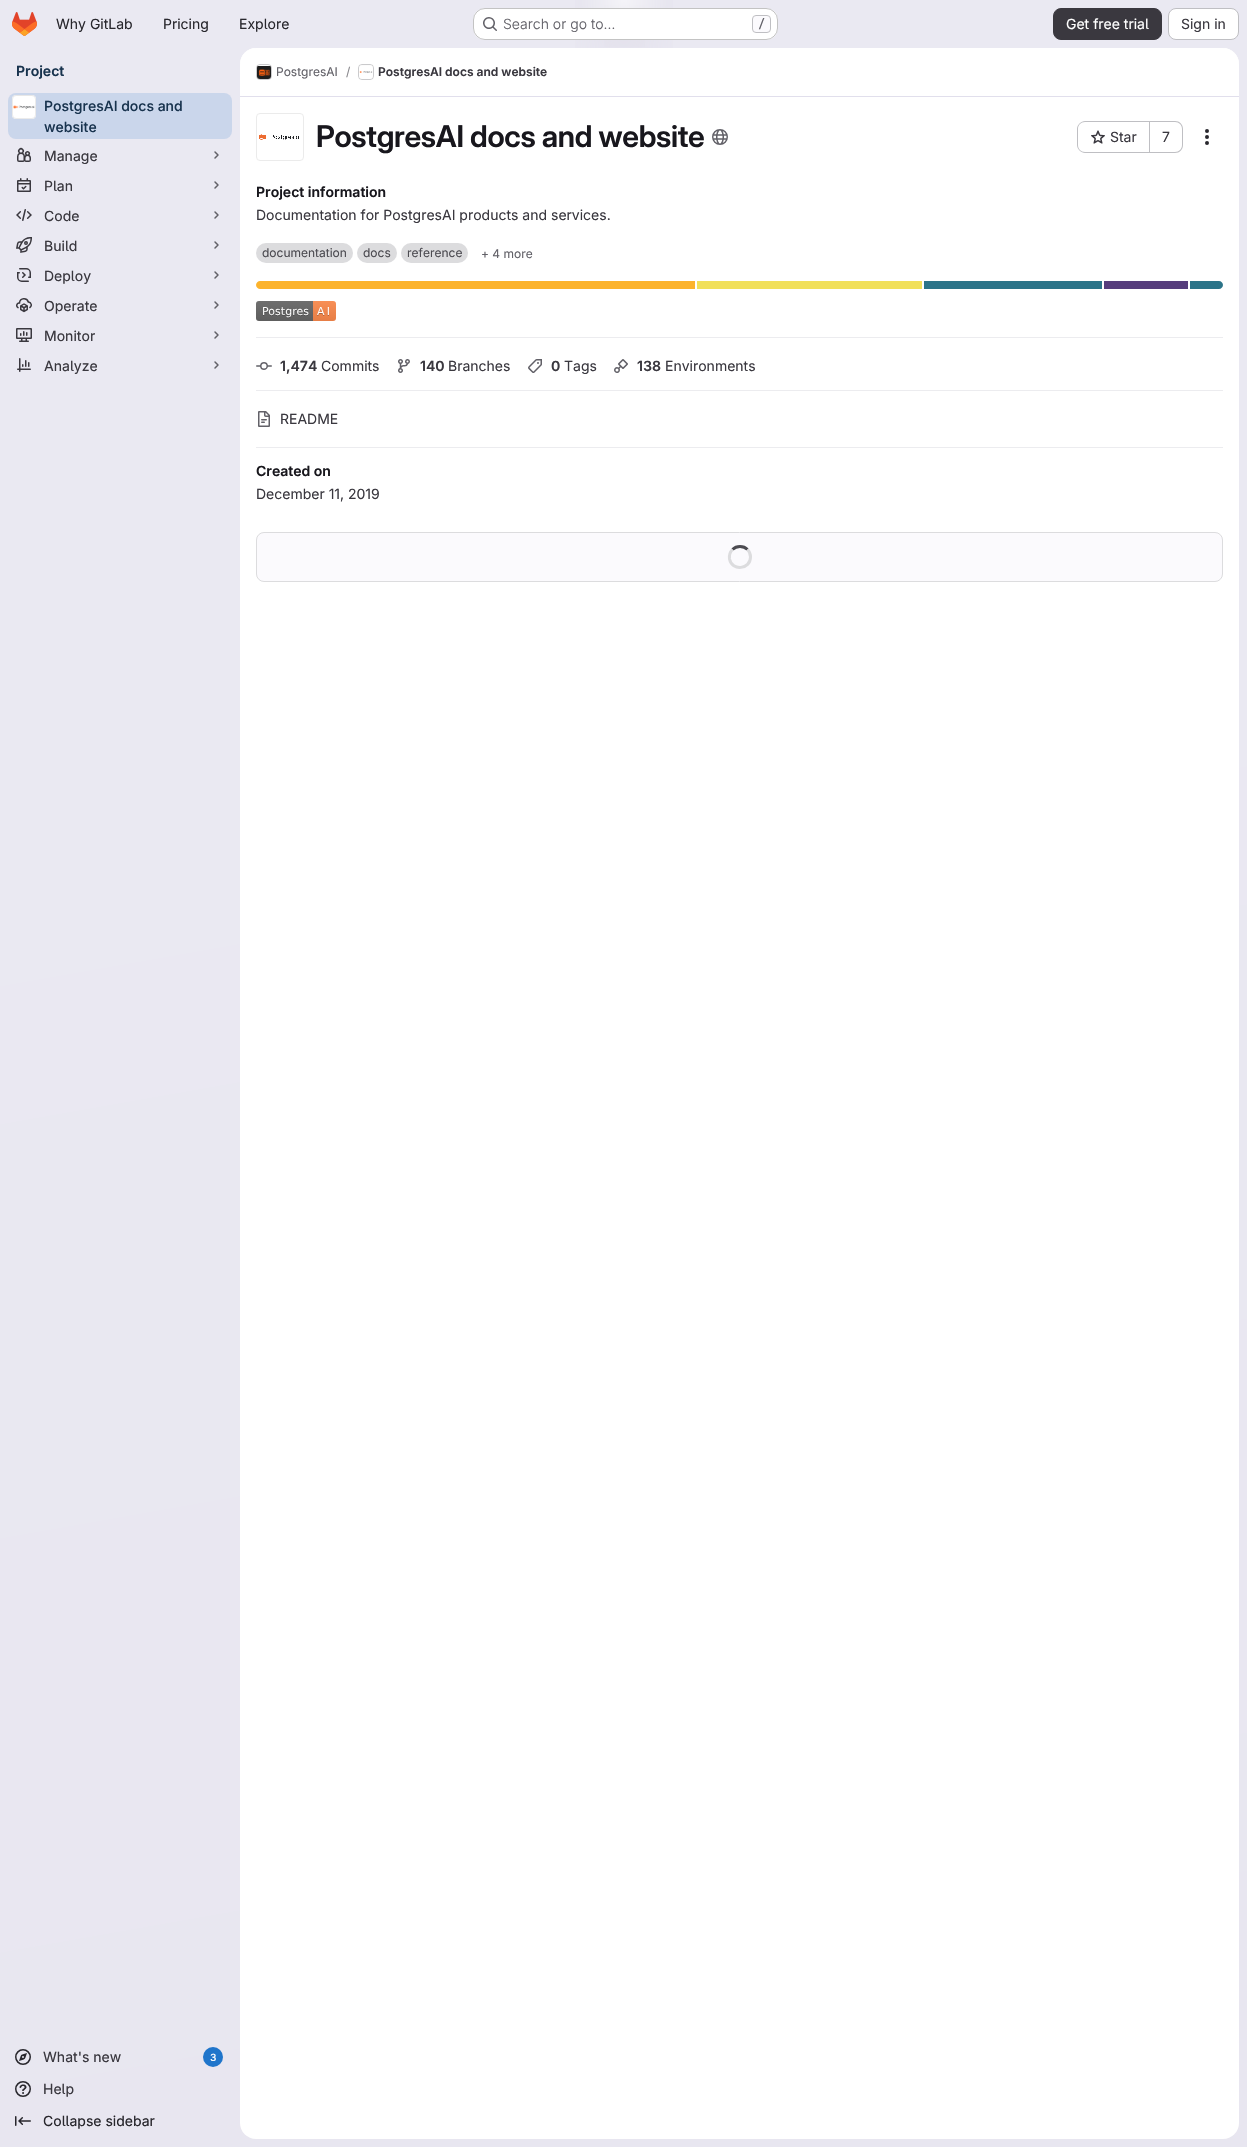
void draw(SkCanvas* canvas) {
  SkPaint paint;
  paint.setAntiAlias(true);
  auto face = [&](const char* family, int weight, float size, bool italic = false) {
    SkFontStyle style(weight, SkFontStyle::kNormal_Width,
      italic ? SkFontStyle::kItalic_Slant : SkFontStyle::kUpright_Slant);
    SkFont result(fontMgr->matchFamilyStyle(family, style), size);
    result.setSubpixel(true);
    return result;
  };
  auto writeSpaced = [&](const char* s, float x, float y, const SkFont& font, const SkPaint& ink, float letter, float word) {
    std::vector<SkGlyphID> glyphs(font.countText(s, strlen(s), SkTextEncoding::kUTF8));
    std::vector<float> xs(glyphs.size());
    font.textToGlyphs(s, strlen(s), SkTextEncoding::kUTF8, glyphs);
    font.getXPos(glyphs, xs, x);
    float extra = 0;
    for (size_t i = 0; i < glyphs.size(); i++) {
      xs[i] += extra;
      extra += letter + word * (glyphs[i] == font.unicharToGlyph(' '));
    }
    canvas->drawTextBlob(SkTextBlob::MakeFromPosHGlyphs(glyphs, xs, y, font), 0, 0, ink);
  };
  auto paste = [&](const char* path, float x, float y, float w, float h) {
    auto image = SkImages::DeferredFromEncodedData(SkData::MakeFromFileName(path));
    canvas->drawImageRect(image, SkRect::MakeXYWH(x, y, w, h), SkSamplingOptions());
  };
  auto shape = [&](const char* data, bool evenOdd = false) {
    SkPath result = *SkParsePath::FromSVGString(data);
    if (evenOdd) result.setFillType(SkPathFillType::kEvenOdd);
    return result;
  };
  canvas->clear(0xffffffff);
  {
    const SkColor colors[] = {0xffe8e6f0, 0xffeae9f2};
    const float stops[] = {0, 0.7f};
    const SkPoint ends[] = {{826, 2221}, {421, -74}};
    paint.setShader(SkGradientShader::MakeLinear(ends, colors, stops, 2, SkTileMode::kClamp));
    paint.setAlpha(255);
  }
  canvas->drawRect(SkRect::MakeXYWH(0, 0, 1247, 2147), paint);
  {
    const SkColor colors[] = {0xffe4e2ed, 0x00e4e2ed};
    const float stops[] = {0, 0.11f};
    SkMatrix m = SkMatrix::Translate(624, 0).preScale(624, 2147);
    paint.setShader(SkGradientShader::MakeRadial({0, 0}, 1, colors, stops, 2, SkTileMode::kClamp, 0, &m));
    paint.setAlpha(255);
  }
  canvas->drawRect(SkRect::MakeXYWH(575, 0, 98, 48), paint);
  {
    const SkColor colors[] = {0xffe4e2ec, 0x00e4e2ec};
    const float stops[] = {0, 0.08f};
    SkMatrix m = SkMatrix::Translate(624, 0).preScale(624, 2147);
    paint.setShader(SkGradientShader::MakeRadial({0, 0}, 1, colors, stops, 2, SkTileMode::kClamp, 0, &m));
    paint.setAlpha(255);
  }
  canvas->drawRect(SkRect::MakeXYWH(604, 5, 41, 42), paint);
  {
    const SkColor colors[] = {0x99ffffff, 0x00ffffff};
    const float stops[] = {0, 0.02f};
    paint.setShader(SkGradientShader::MakeRadial({624, 0}, 2236, colors, stops, 2, SkTileMode::kClamp));
    paint.setAlpha(255);
  }
  canvas->drawRect(SkRect::MakeXYWH(582, 0, 84, 8), paint);
  paste("img/1.png", 12, 12, 25, 24);
  paint.setShader(nullptr);
  paint.setColor(0xffffffff);
  canvas->drawRoundRect(SkRect::MakeXYWH(473, 8, 305, 32), 12, 12, paint);
  paint.setStroke(true);
  paint.setStrokeWidth(1);
  paint.setColor(0x3d050506);
  canvas->drawRoundRect(SkRect::MakeXYWH(473.5f, 8.5f, 304, 31), 11.5f, 11.5f, paint);
  paste("img/2.png", 483, 17, 14, 14);
  paint.setStroke(false);
  paint.setColor(0xfffbfafd);
  canvas->drawRoundRect(SkRect::MakeXYWH(752.5f, 15.5f, 18, 17), 3.5f, 3.5f, paint);
  paint.setStroke(true);
  paint.setColor(0xffbfbfc3);
  canvas->drawRoundRect(SkRect::MakeXYWH(752.5f, 15.5f, 18, 17), 3.5f, 3.5f, paint);
  paint.setStroke(false);
  paint.setColor(0xff3a383f);
  canvas->drawRoundRect(SkRect::MakeXYWH(1053.5f, 8.5f, 108, 31), 7.5f, 7.5f, paint);
  paint.setStroke(true);
  canvas->drawRoundRect(SkRect::MakeXYWH(1053.5f, 8.5f, 108, 31), 7.5f, 7.5f, paint);
  paint.setStroke(false);
  paint.setColor(0xffffffff);
  canvas->drawRoundRect(SkRect::MakeXYWH(1168.5f, 8.5f, 70, 31), 7.5f, 7.5f, paint);
  paint.setStroke(true);
  paint.setColor(0xffbfbfc3);
  canvas->drawRoundRect(SkRect::MakeXYWH(1168.5f, 8.5f, 70, 31), 7.5f, 7.5f, paint);
  paint.setStroke(false);
  paint.setColor(0xffcad6eb);
  canvas->drawRoundRect(SkRect::MakeXYWH(8, 93, 224, 46), 8, 8, paint);
  paste("img/3.png", 12, 95, 24, 24);
  paint.setStroke(true);
  paint.setColor(0x14050506);
  canvas->drawRoundRect(SkRect::MakeXYWH(12.5f, 95.5f, 23, 23), 3.5f, 3.5f, paint);
  paste("img/4.png", 17, 147, 14, 15);
  paint.setStrokeWidth(1.5f);
  paint.setStrokeCap(SkPaint::kRound_Cap);
  paint.setStrokeJoin(SkPaint::kRound_Join);
  paint.setColor(0xff626168);
  canvas->drawPath(shape("M215 152L218 155L215 158"), paint);
  paste("img/5.png", 17, 178, 14, 14);
  canvas->drawPath(shape("M215 182L218 185L215 188"), paint);
  paste("img/6.png", 16, 209, 16, 12);
  canvas->drawPath(shape("M215 212L218 215L215 218"), paint);
  paste("img/7.png", 16, 237, 16, 16);
  canvas->drawPath(shape("M215 242L218 245L215 248"), paint);
  paste("img/8.png", 17, 268, 14, 14);
  canvas->drawPath(shape("M215 272L218 275L215 278"), paint);
  paste("img/9.png", 16, 298, 16, 15);
  canvas->drawPath(shape("M215 302L218 305L215 308"), paint);
  paste("img/10.png", 16, 328, 16, 14);
  canvas->drawPath(shape("M215 332L218 335L215 338"), paint);
  paste("img/11.png", 17, 358, 14, 14);
  canvas->drawPath(shape("M215 362L218 365L215 368"), paint);
  paste("img/12.png", 15, 2049, 16, 16);
  paint.setStroke(false);
  paint.setColor(0xff1f75cb);
  canvas->drawCircle(213, 2057, 10, paint);
  paste("img/13.png", 15, 2081, 16, 16);
  paste("img/14.png", 15, 2116, 16, 10);
  paint.setColor(0xffffffff);
  canvas->drawRoundRect(SkRect::MakeXYWH(240, 48, 999, 2091), 16, 16, paint);
  canvas->drawPath(shape("M256 48H1223C1232 48 1239 55 1239 64V97H240V64C240 55 247 48 256 48Z"), paint);
  paint.setColor(0xffe1dfec);
  canvas->drawRect(SkRect::MakeXYWH(240, 96, 999, 1), paint);
  paint.setStroke(true);
  paint.setStrokeWidth(1);
  paint.setStrokeCap(SkPaint::kButt_Cap);
  paint.setStrokeJoin(SkPaint::kMiter_Join);
  paint.setColor(0xffdcdcde);
  canvas->drawRoundRect(SkRect::MakeXYWH(256.5f, 64.5f, 15, 15), 3.5f, 3.5f, paint);
  paste("img/15.png", 257, 66, 14, 13);
  paint.setColor(0x14050506);
  canvas->drawRoundRect(SkRect::MakeXYWH(256.5f, 64.5f, 15, 15), 3.5f, 3.5f, paint);
  paint.setColor(0xffdcdcde);
  canvas->drawRoundRect(SkRect::MakeXYWH(358.5f, 64.5f, 15, 15), 3.5f, 3.5f, paint);
  paste("img/16.png", 359, 65, 14, 14);
  paint.setColor(0x14050506);
  canvas->drawRoundRect(SkRect::MakeXYWH(358.5f, 64.5f, 15, 15), 3.5f, 3.5f, paint);
  paste("img/17.png", 259, 134, 40, 6);
  paint.setColor(0xffebebeb);
  canvas->drawRoundRect(SkRect::MakeXYWH(256.5f, 113.5f, 47, 47), 3.5f, 3.5f, paint);
  paste("img/18.png", 712, 129, 16, 16);
  paint.setStroke(false);
  paint.setColor(0xffbfbfc3);
  canvas->drawPath(shape("M1085 121H1149V153H1085C1081 153 1077 149 1077 145V129C1077 125 1081 121 1085 121ZM1085 122H1149V152H1085C1081 152 1078 149 1078 145V129C1078 125 1081 122 1085 122Z", true), paint);
  paste("img/19.png", 1091, 130, 14, 14);
  canvas->drawPath(shape("M1150 121H1175C1179.5 121 1183 124.5 1183 129V145C1183 149.5 1179.5 153 1175 153H1150ZM1150 122H1175C1179 122 1182 125 1182 129V145C1182 149 1179 152 1175 152H1150Z", true), paint);
  canvas->drawRect(SkRect::MakeXYWH(1149, 121, 1, 32), paint);
  paste("img/20.png", 1205, 129, 4, 16);
  paint.setColor(0xffececef);
  canvas->drawRect(SkRect::MakeXYWH(256, 337, 967, 1), paint);
  paint.setColor(0xffdcdcde);
  canvas->drawRoundRect(SkRect::MakeXYWH(256, 243, 97, 20), 10, 10, paint);
  canvas->drawRoundRect(SkRect::MakeXYWH(357, 243, 40, 20), 10, 10, paint);
  canvas->drawRoundRect(SkRect::MakeXYWH(401, 243, 67, 20), 10, 10, paint);
  paint.setColor(0xfffcb32c);
  canvas->drawPath(shape("M260 281H695V289H260C258 289 256 287 256 285C256 283 258 281 260 281Z"), paint);
  {
    const struct { float x, y, w, h; SkColor color; } items[] = {
      {697, 281, 225, 8, 0xfff1e05a},
      {924, 281, 178, 8, 0xff2b7489},
      {1104, 281, 84, 8, 0xff563d7c},
    };
    for (auto [x, y, w, h, color] : items) {
      paint.setColor(color);
      canvas->drawRect(SkRect::MakeXYWH(x, y, w, h), paint);
    }
  }
  paint.setColor(0xff2b7489);
  canvas->drawPath(shape("M1190 281H1219C1221 281 1223 283 1223 285C1223 287 1221 289 1219 289H1190Z"), paint);
  paste("img/21.png", 256, 301, 80, 20);
  paint.setColor(0xffececef);
  canvas->drawRect(SkRect::MakeXYWH(256, 390, 967, 1), paint);
  paste("img/22.png", 256, 362, 16, 8);
  paste("img/23.png", 398, 359, 12, 14);
  paste("img/24.png", 528, 359, 14, 14);
  paste("img/25.png", 614, 359, 14, 14);
  canvas->drawRect(SkRect::MakeXYWH(256, 447, 967, 1), paint);
  paste("img/26.png", 258, 411, 12, 16);
  paint.setColor(0xfffbfafd);
  canvas->drawRoundRect(SkRect::MakeXYWH(256.5f, 532.5f, 966, 49), 7.5f, 7.5f, paint);
  paint.setStroke(true);
  paint.setColor(0xffdcdcde);
  canvas->drawRoundRect(SkRect::MakeXYWH(256.5f, 532.5f, 966, 49), 7.5f, 7.5f, paint);
  paint.setStrokeWidth(3);
  paint.setColor(0xff4c4b51);
  canvas->drawPath(shape("M732.5 549.5C736.5 545.5 743.5 545.5 747.5 549.5"), paint);
  paint.setColor(0xffdcdcde);
  canvas->drawPath(shape("M747.5 549.5C749.5 551.5 750.5 554 750.5 557C750.5 569.5 732 571.5 729.5 559C729 555.5 730 552 732.5 549.5"), paint);
  auto f0 = face("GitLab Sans", 400, 14);
  paint.setStroke(false);
  paint.setColor(0xff28272d);
  {
    const struct { const char* s; float x, y; } items[] = {
      {"Why GitLab", 56, 29},
      {"Pricing", 163, 29},
      {"Explore", 239, 29},
    };
    for (auto [s, x, y] : items) {
      canvas->drawString(s, x, y, f0, paint);
    }
  }
  auto f1 = face("GitLab Sans", 300, 14);
  paint.setColor(0xff626168);
  canvas->drawString("Search or go to…", 503, 29, f1, paint);
  auto f2 = face("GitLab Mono", 500, 12);
  canvas->drawString("/", 758, 28, f2, paint);
  paint.setColor(0xffffffff);
  canvas->drawString("Get free trial", 1066, 29, f0, paint);
  paint.setColor(0xff3a383f);
  canvas->drawString("Sign in", 1181, 29, f0, paint);
  auto f3 = face("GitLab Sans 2", 600, 14);
  paint.setColor(0xff18334e);
  canvas->drawString("Project", 16, 76, f3, paint);
  auto f4 = face("GitLab Sans", 500, 14);
  canvas->drawString("PostgresAI docs and", 44, 111, f4, paint);
  canvas->drawString("website", 44, 132, f4, paint);
  auto f5 = face("GitLab Sans 2", 400, 14);
  paint.setColor(0xff3a383f);
  {
    const struct { const char* s; float x, y; } items[] = {
      {"Manage", 44, 161},
      {"Plan", 44, 191},
      {"Code", 44, 221},
      {"Build", 44, 251},
      {"Deploy", 44, 281},
      {"Operate", 44, 311},
      {"Monitor", 44, 341},
      {"Analyze", 44, 371},
      {"What's new", 43, 2062},
    };
    for (auto [s, x, y] : items) {
      canvas->drawString(s, x, y, f5, paint);
    }
  }
  auto f6 = face("GitLab Sans", 500, 10);
  paint.setColor(0xffffffff);
  canvas->drawString("3", 210, 2061, f6, paint);
  paint.setColor(0xff3a383f);
  canvas->drawString("Help", 43, 2094, f5, paint);
  paint.setColor(0xff28272d);
  canvas->drawString("Collapse sidebar", 43, 2126, f5, paint);
  auto f7 = face("GitLab Sans", 400, 12);
  paint.setColor(0xff626168);
  canvas->drawString("PostgresAI", 276, 76, f7, paint);
  paint.setColor(0xff89888d);
  canvas->drawString("/", 346, 76, f7, paint);
  auto f8 = face("GitLab Sans 2", 600, 12);
  paint.setColor(0xff3a383f);
  canvas->drawString("PostgresAI docs and website", 378, 76, f8, paint);
  auto f9 = face("GitLab Sans", 600, 30);
  paint.setColor(0xff18171d);
  writeSpaced("PostgresAI docs and website", 316, 147, f9, paint, -0.3f, 0);
  paint.setColor(0xff3a383f);
  canvas->drawString("Star", 1110, 142, f0, paint);
  canvas->drawString("7", 1162, 142, f0, paint);
  paint.setColor(0xff18171d);
  canvas->drawString("Project information", 256, 197, f3, paint);
  paint.setColor(0xff3a383f);
  canvas->drawString("Documentation for PostgresAI products and services.", 256, 220, f0, paint);
  paint.setColor(0xff4c4b51);
  {
    const struct { const char* s; float x, y; } items[] = {
      {"documentation", 262, 257},
      {"docs", 363, 257},
      {"reference", 407, 257},
    };
    for (auto [s, x, y] : items) {
      canvas->drawString(s, x, y, f7, paint);
    }
  }
  paint.setColor(0xff626168);
  canvas->drawString("+ 4 more", 481, 258, f7, paint);
  paint.setColor(0xff3a383f);
  canvas->drawString("1,474", 280, 371, f3, paint);
  canvas->drawString("Commits", 321, 371, f0, paint);
  canvas->drawString("140", 420, 371, f3, paint);
  canvas->drawString("Branches", 448, 371, f0, paint);
  canvas->drawString("0", 551, 371, f3, paint);
  canvas->drawString("Tags", 564, 371, f0, paint);
  canvas->drawString("138", 637, 371, f3, paint);
  canvas->drawString("Environments", 665, 371, f0, paint);
  canvas->drawString("README", 280, 424, f0, paint);
  paint.setColor(0xff18171d);
  canvas->drawString("Created on", 256, 476, f3, paint);
  paint.setColor(0xff3a383f);
  canvas->drawString("December 11, 2019", 256, 499, f0, paint);
}
